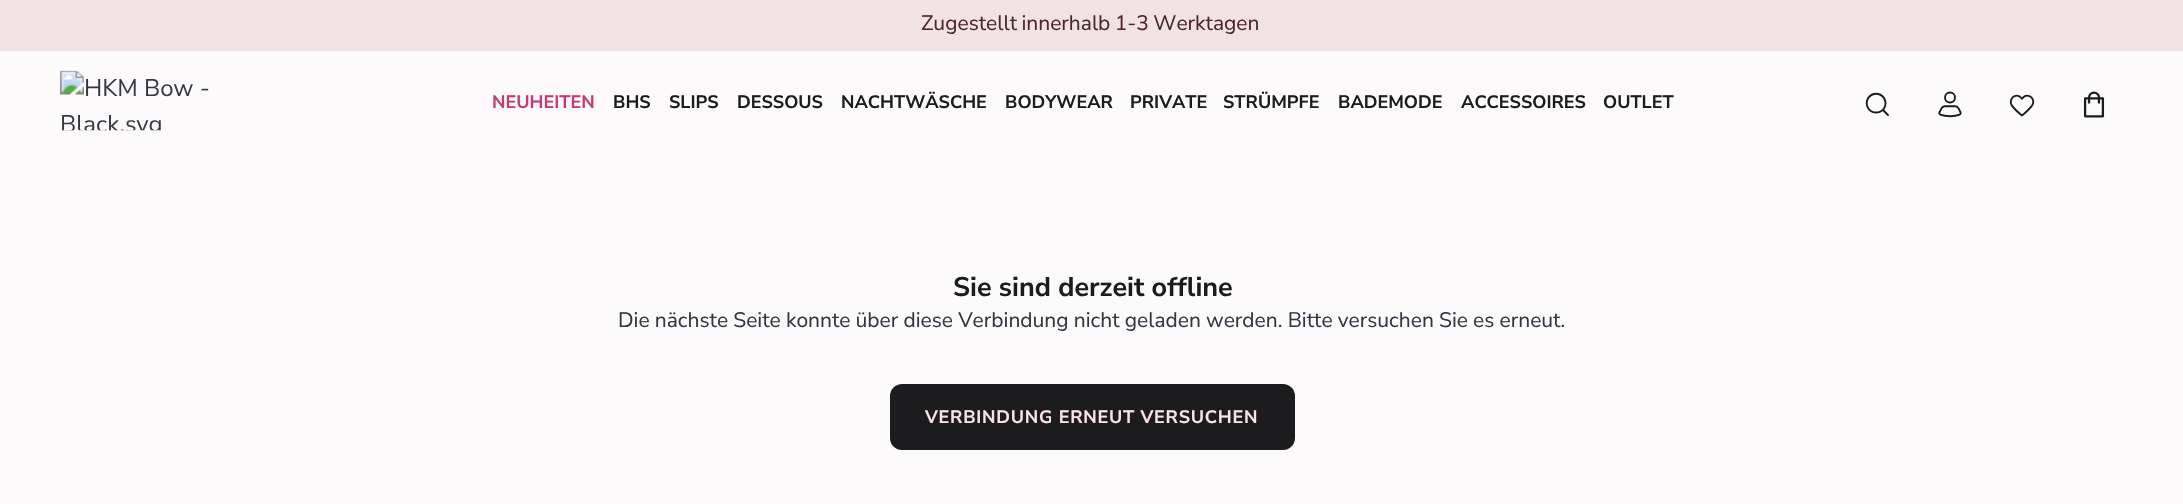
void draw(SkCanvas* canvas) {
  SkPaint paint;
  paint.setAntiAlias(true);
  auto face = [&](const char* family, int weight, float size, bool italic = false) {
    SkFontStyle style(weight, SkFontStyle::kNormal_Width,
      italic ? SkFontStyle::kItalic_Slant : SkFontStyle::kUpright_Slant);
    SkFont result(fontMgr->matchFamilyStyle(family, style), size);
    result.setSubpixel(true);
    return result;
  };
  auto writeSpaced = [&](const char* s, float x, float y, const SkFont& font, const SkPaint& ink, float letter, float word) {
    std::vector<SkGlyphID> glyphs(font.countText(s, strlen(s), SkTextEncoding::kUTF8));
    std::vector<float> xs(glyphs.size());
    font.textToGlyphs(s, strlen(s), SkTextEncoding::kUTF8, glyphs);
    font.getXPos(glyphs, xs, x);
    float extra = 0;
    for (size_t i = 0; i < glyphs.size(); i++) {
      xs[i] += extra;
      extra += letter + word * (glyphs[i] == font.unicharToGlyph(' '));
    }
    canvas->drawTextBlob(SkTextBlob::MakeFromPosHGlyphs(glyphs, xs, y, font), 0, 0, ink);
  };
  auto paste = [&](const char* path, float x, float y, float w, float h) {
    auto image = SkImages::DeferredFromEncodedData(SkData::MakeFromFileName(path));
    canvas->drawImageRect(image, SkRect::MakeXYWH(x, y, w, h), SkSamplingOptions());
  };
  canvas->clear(0xfffcfafb);
  paint.setColor(0xfff1e2e3);
  canvas->drawRect(SkRect::MakeXYWH(0, 0, 2183, 51), paint);
  paste("img/1.png", 60, 70, 149, 61);
  paste("img/2.png", 1865, 92, 24, 24);
  paste("img/3.png", 1938, 91, 24, 27);
  paste("img/4.png", 2009, 94, 26, 23);
  paste("img/5.png", 2083, 91, 22, 27);
  paint.setColor(0xff1c1c1f);
  canvas->drawRoundRect(SkRect::MakeXYWH(890, 384, 405, 66), 12, 12, paint);
  auto f0 = face("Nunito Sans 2", 200, 21);
  paint.setColor(0xff4f2534);
  writeSpaced("Zugestellt innerhalb 1-3 Werktagen", 921, 30, f0, paint, 0, -1);
  auto f1 = face("Nunito Sans", 200, 18);
  paint.setColor(0xffca3876);
  canvas->drawString("NEUHEITEN", 492, 108, f1, paint);
  paint.setColor(0xff1c1c1f);
  {
    const struct { const char* s; float x, y; } items[] = {
      {"BHS", 613, 108},
      {"SLIPS", 669, 108},
      {"DESSOUS", 737, 108},
      {"NACHTWÄSCHE", 841, 108},
      {"BODYWEAR", 1005, 108},
      {"PRIVATE", 1130, 108},
      {"STRÜMPFE", 1223, 108},
      {"BADEMODE", 1338, 108},
      {"ACCESSOIRES", 1461, 108},
      {"OUTLET", 1603, 108},
    };
    for (auto [s, x, y] : items) {
      canvas->drawString(s, x, y, f1, paint);
    }
  }
  auto f2 = face("Nunito Sans", 200, 27);
  canvas->drawString("Sie sind derzeit offline", 953, 296, f2, paint);
  paint.setColor(0xff363642);
  writeSpaced("Die nächste Seite konnte über diese Verbindung nicht geladen werden. Bitte versuchen Sie es erneut.", 618, 327, f0, paint, 0, -0.25f);
  paint.setColor(0xfffce1e7);
  writeSpaced("VERBINDUNG ERNEUT VERSUCHEN", 925, 423, f1, paint, 0.75f, 0);
}
